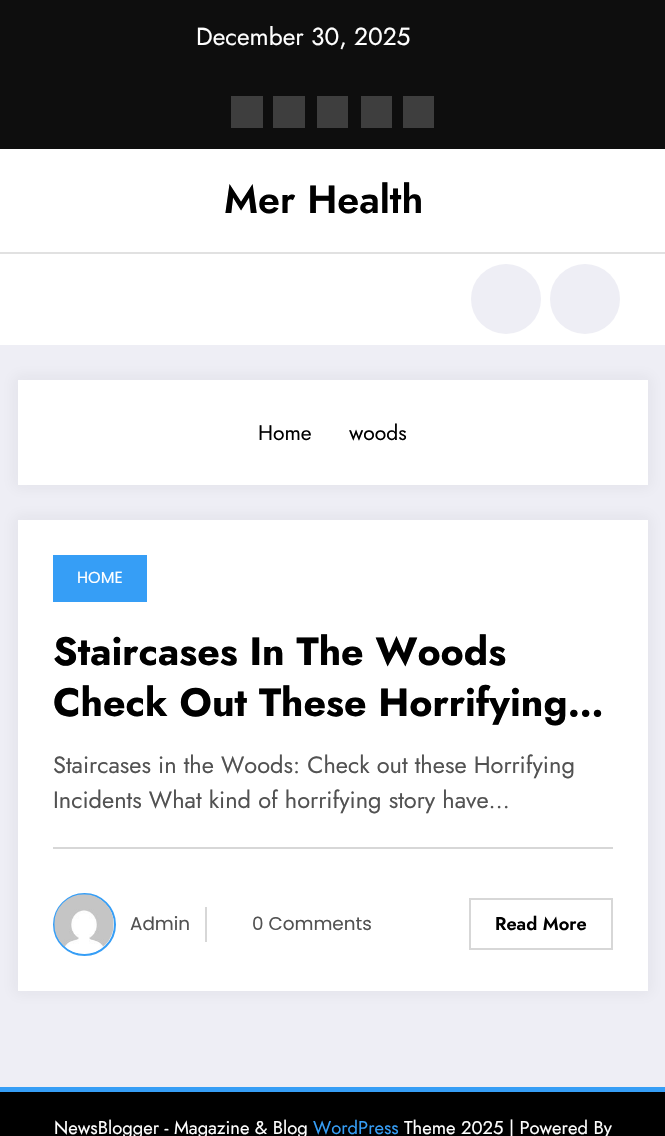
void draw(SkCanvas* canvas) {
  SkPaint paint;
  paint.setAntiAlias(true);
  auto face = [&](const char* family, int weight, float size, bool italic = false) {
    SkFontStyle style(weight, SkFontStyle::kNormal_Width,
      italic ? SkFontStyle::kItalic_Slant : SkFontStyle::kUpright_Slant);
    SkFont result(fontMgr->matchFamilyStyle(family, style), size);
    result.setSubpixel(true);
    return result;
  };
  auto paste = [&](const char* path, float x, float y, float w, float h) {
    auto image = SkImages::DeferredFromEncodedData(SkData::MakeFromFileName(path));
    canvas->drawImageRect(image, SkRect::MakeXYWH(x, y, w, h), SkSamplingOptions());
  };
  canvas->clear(0xffeeeef5);
  {
    const struct { float x, y, w, h; SkColor color; } items[] = {
      {0, 0, 665, 149, 0xff0e0e0e},
      {231, 96, 32, 32, 0xff3e3e3e},
      {273, 96, 32, 32, 0xff3e3e3e},
      {317, 96, 31, 32, 0xff3e3e3e},
      {361, 96, 31, 32, 0xff3e3e3e},
      {403, 96, 31, 32, 0xff3e3e3e},
      {0, 149, 665, 196, 0xffffffff},
      {0, 252, 665, 2, 0xffe1e1e1},
    };
    for (auto [x, y, w, h, color] : items) {
      paint.setColor(color);
      canvas->drawRect(SkRect::MakeXYWH(x, y, w, h), paint);
    }
  }
  paint.setColor(0xffeeeef5);
  canvas->drawCircle(506, 299, 35, paint);
  canvas->drawCircle(585, 299, 35, paint);
  paint.setColor(0x0d171723);
  paint.setMaskFilter(SkMaskFilter::MakeBlur(kNormal_SkBlurStyle, 7));
  canvas->drawRect(SkRect::MakeXYWH(14, 376, 637, 112), paint);
  paint.setMaskFilter(nullptr);
  paint.setColor(0xffffffff);
  canvas->drawRect(SkRect::MakeXYWH(18, 380, 630, 105), paint);
  paint.setColor(0x0d171723);
  paint.setMaskFilter(SkMaskFilter::MakeBlur(kNormal_SkBlurStyle, 7));
  canvas->drawRect(SkRect::MakeXYWH(14, 516, 637, 478), paint);
  paint.setMaskFilter(nullptr);
  {
    const struct { float x, y, w, h; SkColor color; } items[] = {
      {18, 520, 630, 471, 0xffffffff},
      {53, 555, 94, 47, 0xff369ef6},
      {53, 847, 560, 2, 0xffd7d7d7},
    };
    for (auto [x, y, w, h, color] : items) {
      paint.setColor(color);
      canvas->drawRect(SkRect::MakeXYWH(x, y, w, h), paint);
    }
  }
  paint.setStroke(true);
  paint.setStrokeWidth(2);
  paint.setColor(0xff369ef6);
  canvas->drawCircle(84.5f, 924.5f, 30.5f, paint);
  paste("img/1.png", 54, 894, 60, 60);
  paint.setStroke(false);
  paint.setColor(0xffd7d7d7);
  canvas->drawRect(SkRect::MakeXYWH(205, 907, 2, 35), paint);
  paint.setStroke(true);
  canvas->drawRect(SkRect::MakeXYWH(470, 899, 142, 50), paint);
  paint.setStroke(false);
  paint.setColor(0xff369ef6);
  canvas->drawRect(SkRect::MakeXYWH(0, 1087, 665, 5), paint);
  paint.setColor(0xff000000);
  canvas->drawRect(SkRect::MakeXYWH(0, 1092, 665, 44), paint);
  auto f0 = face("Jost", 400, 24.5f);
  paint.setColor(0xffffffff);
  canvas->drawString("December 30, 2025", 196, 45, f0, paint);
  auto f1 = face("Jost", 600, 39.4f);
  paint.setColor(0xff000000);
  canvas->drawString("Mer Health", 224, 213, f1, paint);
  auto f2 = face("Jost", 400, 21);
  canvas->drawString("Home", 258, 440, f2, paint);
  canvas->drawString("woods", 349, 440, f2, paint);
  auto f3 = face("Poppins", 400, 16);
  paint.setColor(0xffffffff);
  canvas->drawString("HOME", 77, 583, f3, paint);
  auto f4 = face("Jost", 700, 39.4f);
  paint.setColor(0xff000000);
  canvas->drawString("Staircases In The Woods", 53, 665, f4, paint);
  canvas->drawString("Check Out These Horrifying…", 53, 716, f4, paint);
  auto f5 = face("Jost", 400, 23.6f);
  paint.setColor(0xff525252);
  canvas->drawString("Staircases in the Woods: Check out these Horrifying", 53, 773, f5, paint);
  canvas->drawString("Incidents What kind of horrifying story have…", 53, 808, f5, paint);
  auto f6 = face("Poppins", 400, 18.4f);
  canvas->drawString("Admin", 130, 930, f6, paint);
  canvas->drawString("0 Comments", 252, 930, f6, paint);
  auto f7 = face("Jost", 600, 18.4f);
  paint.setColor(0xff000000);
  canvas->drawString("Read More", 495, 930, f7, paint);
  auto f8 = face("Jost", 400, 18.4f);
  paint.setColor(0xffffffff);
  canvas->drawString("NewsBlogger - Magazine & Blog", 54, 1134, f8, paint);
  paint.setColor(0xff369ef6);
  canvas->drawString("WordPress", 313, 1134, f8, paint);
  paint.setColor(0xffffffff);
  canvas->drawString("Theme 2025 | Powered By", 404, 1134, f8, paint);
}
